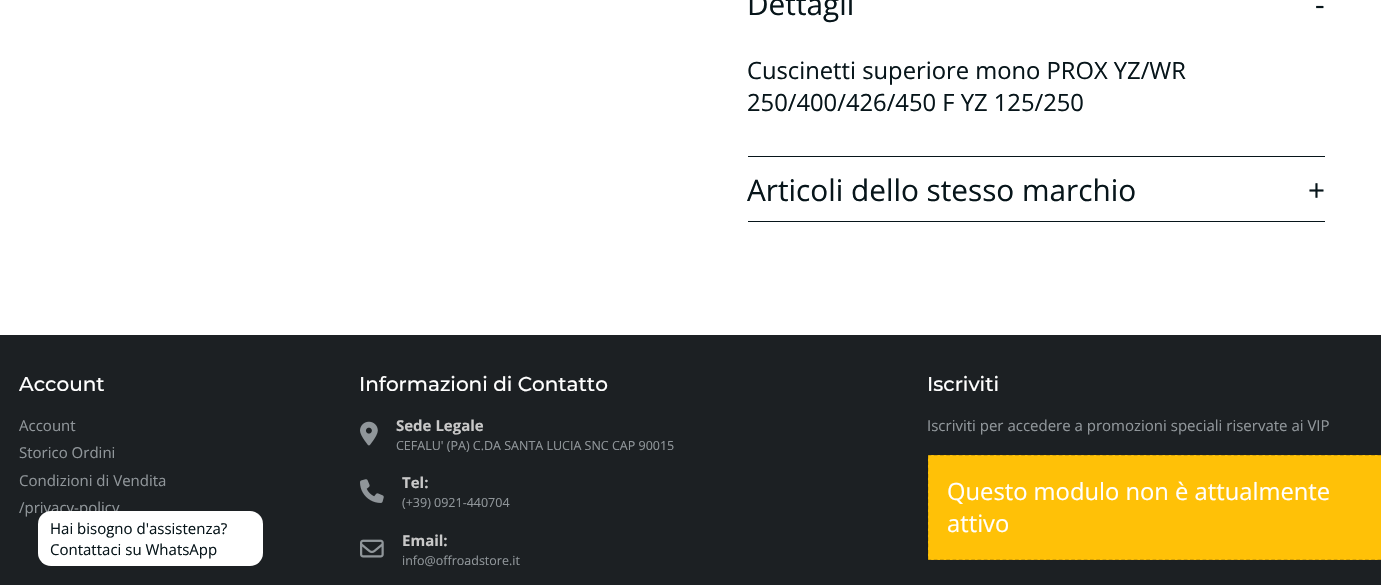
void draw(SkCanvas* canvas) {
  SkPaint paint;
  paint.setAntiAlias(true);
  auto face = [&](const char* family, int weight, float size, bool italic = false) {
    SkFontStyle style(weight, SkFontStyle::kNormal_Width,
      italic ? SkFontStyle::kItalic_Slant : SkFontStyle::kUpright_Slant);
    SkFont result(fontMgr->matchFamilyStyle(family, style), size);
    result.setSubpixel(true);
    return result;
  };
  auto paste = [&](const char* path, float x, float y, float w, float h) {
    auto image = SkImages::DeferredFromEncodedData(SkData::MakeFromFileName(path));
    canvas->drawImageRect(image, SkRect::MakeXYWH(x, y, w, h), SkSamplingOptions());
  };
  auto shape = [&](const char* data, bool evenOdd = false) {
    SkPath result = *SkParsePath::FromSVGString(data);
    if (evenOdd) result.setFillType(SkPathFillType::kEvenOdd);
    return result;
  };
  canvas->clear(0xffffffff);
  {
    const struct { float x, y, w, h; SkColor color; } items[] = {
      {748, 221, 577, 1, 0xff07151a},
      {748, 156, 577, 1, 0xff07151a},
      {0, 335, 1381, 250, 0xff1c2023},
      {928, 455, 453, 105, 0xffffc107},
    };
    for (auto [x, y, w, h, color] : items) {
      paint.setColor(color);
      canvas->drawRect(SkRect::MakeXYWH(x, y, w, h), paint);
    }
  }
  paint.setStroke(true);
  paint.setStrokeWidth(1.2f);
  paint.setColor(0x26000000);
  paint.setPathEffect(SkDashPathEffect::Make({{3.75f, 2.5f}}, 0));
  canvas->drawPath(shape("M927.5 455.5H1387.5"), paint);
  paint.setPathEffect(nullptr);
  paint.setPathEffect(SkDashPathEffect::Make({{3.75f, 2.5f}}, 0));
  canvas->drawPath(shape("M927.5 559.5H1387.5"), paint);
  paint.setPathEffect(nullptr);
  paint.setPathEffect(SkDashPathEffect::Make({{3.75f, 2.58f}}, 0));
  canvas->drawPath(shape("M928 455V560"), paint);
  paint.setPathEffect(nullptr);
  paste("img/1.png", 360, 421, 18, 25);
  paste("img/2.png", 360, 479, 24, 24);
  paste("img/3.png", 360, 539, 24, 19);
  auto f0 = face("Open Sans", 400, 29.75f);
  paint.setStroke(false);
  paint.setColor(0xff07151a);
  canvas->drawString("Dettagli", 747, 15, f0, paint);
  canvas->drawString("-", 1315, 15, f0, paint);
  auto f1 = face("Open Sans", 400, 23.75f);
  canvas->drawString("Cuscinetti superiore mono PROX YZ/WR", 747, 79, f1, paint);
  canvas->drawString("250/400/426/450 F YZ 125/250", 747, 111, f1, paint);
  canvas->drawString("Articoli dello stesso marchio", 747, 201, f0, paint);
  canvas->drawString("+", 1308, 201, f0, paint);
  auto f2 = face("Montserrat", 500, 20);
  paint.setColor(0xffffffff);
  canvas->drawString("Iscriviti", 927, 391, f2, paint);
  auto f3 = face("Open Sans", 400, 15);
  paint.setColor(0xff90969a);
  canvas->drawString("Iscriviti per accedere a promozioni speciali riservate ai VIP", 927, 431, f3, paint);
  paint.setColor(0xffffffff);
  canvas->drawString("Questo modulo non è attualmente", 947, 500, f1, paint);
  canvas->drawString("attivo", 947, 532, f1, paint);
  canvas->drawString("Account", 19, 391, f2, paint);
  paint.setColor(0xff90969a);
  {
    const struct { const char* s; float x, y; } items[] = {
      {"Account", 19, 431},
      {"Storico Ordini", 19, 458},
      {"Condizioni di Vendita", 19, 486},
      {"/privacy-policy", 19, 513},
    };
    for (auto [s, x, y] : items) {
      canvas->drawString(s, x, y, f3, paint);
    }
  }
  paint.setColor(0xffffffff);
  canvas->drawRoundRect(SkRect::MakeXYWH(38, 511, 225, 55), 13, 13, paint);
  paint.setColor(0xff07151a);
  canvas->drawString("Contattaci su WhatsApp", 50, 555, f3, paint);
  canvas->drawString("Hai bisogno d'assistenza?", 50, 534, f3, paint);
  paint.setColor(0xffffffff);
  canvas->drawString("Informazioni di Contatto", 359, 391, f2, paint);
  auto f4 = face("Open Sans", 700, 15);
  paint.setColor(0xffc8c8c8);
  canvas->drawString("Sede Legale", 396, 431, f4, paint);
  auto f5 = face("Open Sans", 400, 12.5f);
  paint.setColor(0xff90969a);
  canvas->drawString("CEFALU' (PA) C.DA SANTA LUCIA SNC CAP 90015", 396, 450, f5, paint);
  paint.setColor(0xffc8c8c8);
  canvas->drawString("Tel:", 402, 488, f4, paint);
  paint.setColor(0xff90969a);
  canvas->drawString("(+39) 0921-440704", 402, 507, f5, paint);
  paint.setColor(0xffc8c8c8);
  canvas->drawString("Email:", 402, 546, f4, paint);
  paint.setColor(0xff90969a);
  canvas->drawString("info@offroadstore.it", 402, 565, f5, paint);
}
